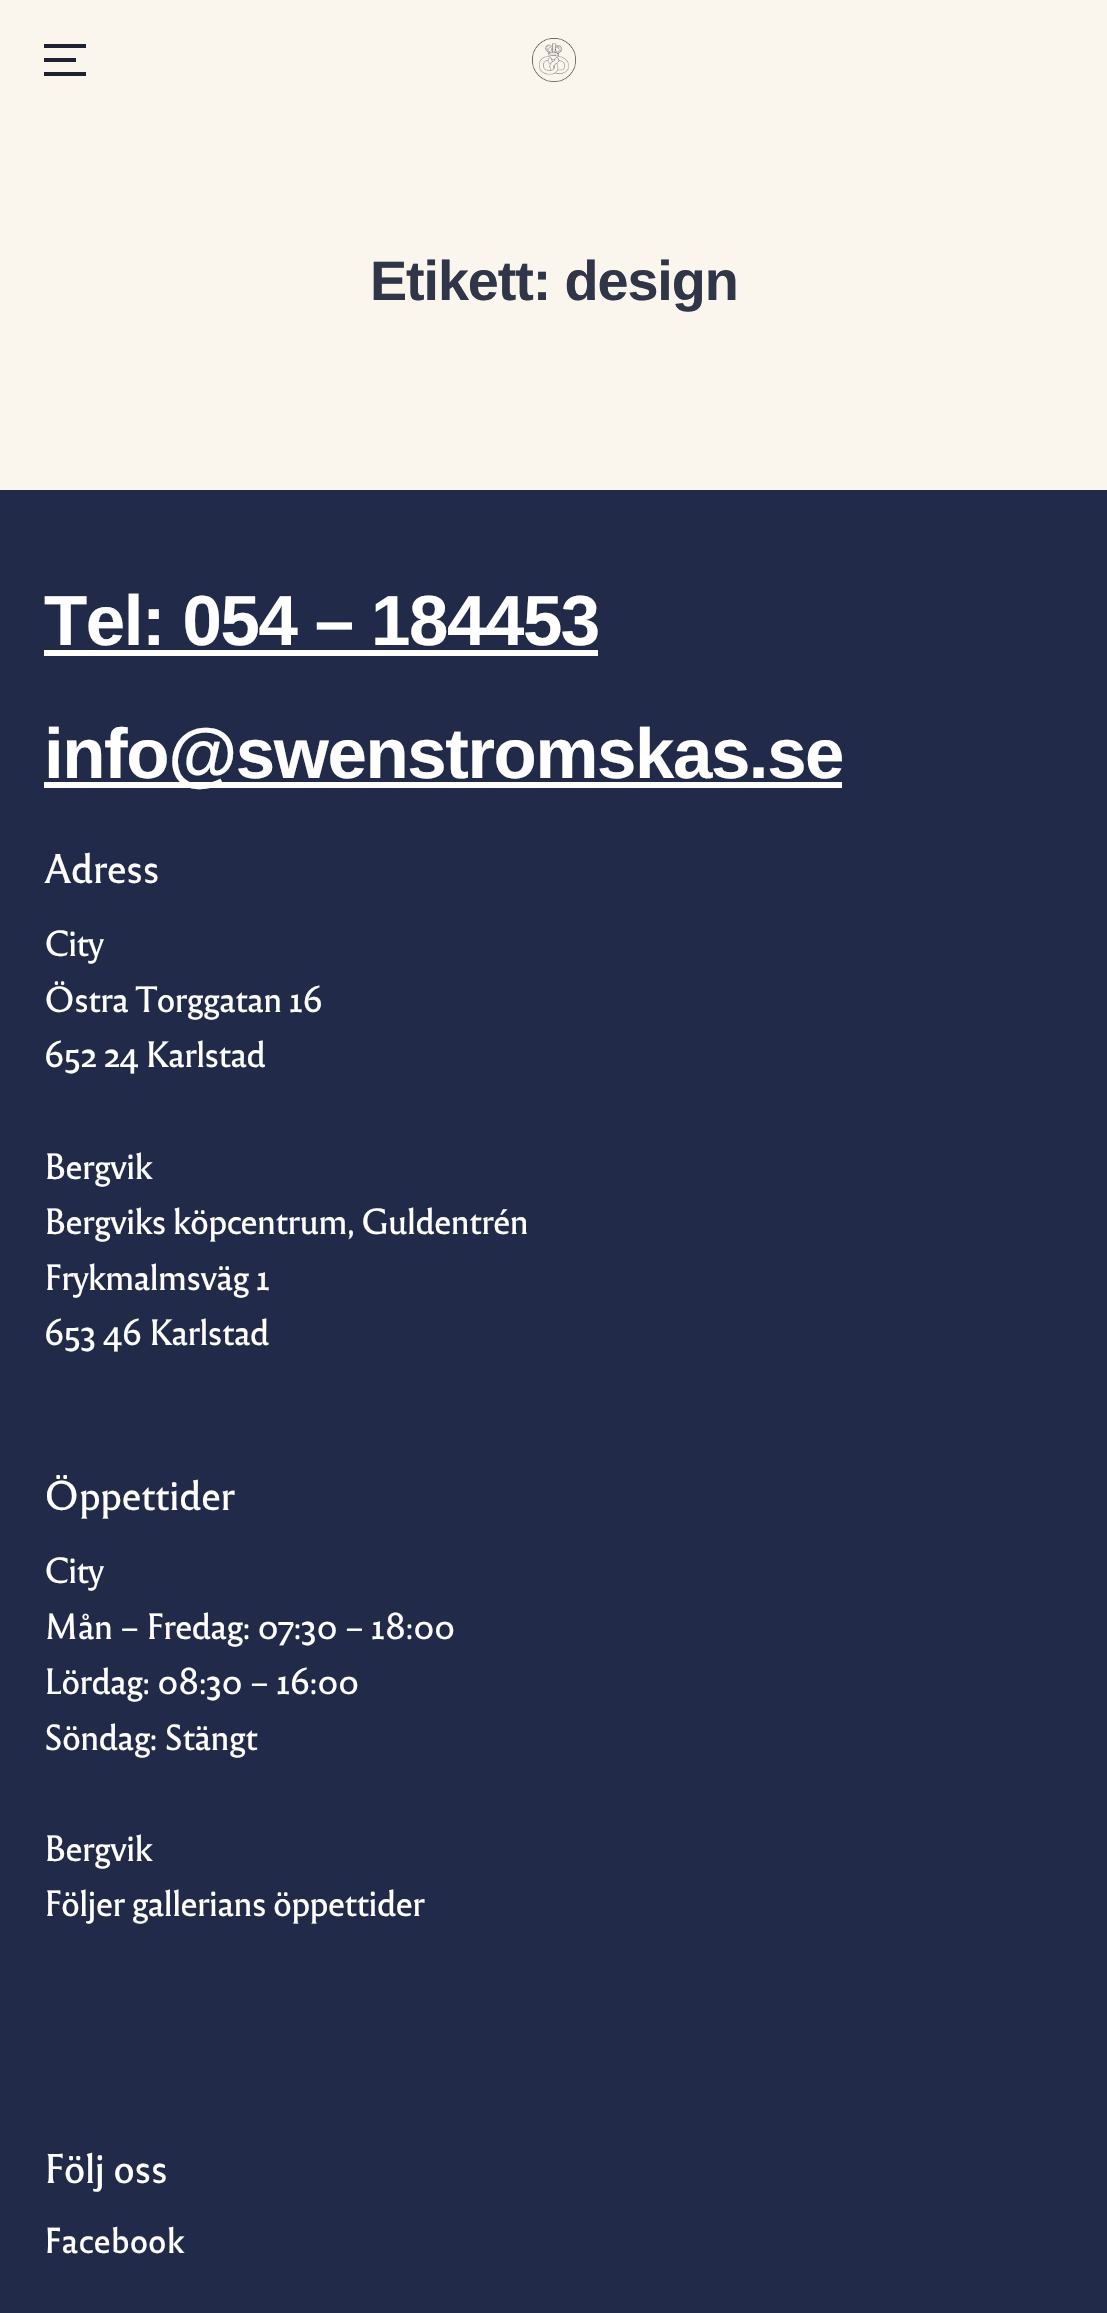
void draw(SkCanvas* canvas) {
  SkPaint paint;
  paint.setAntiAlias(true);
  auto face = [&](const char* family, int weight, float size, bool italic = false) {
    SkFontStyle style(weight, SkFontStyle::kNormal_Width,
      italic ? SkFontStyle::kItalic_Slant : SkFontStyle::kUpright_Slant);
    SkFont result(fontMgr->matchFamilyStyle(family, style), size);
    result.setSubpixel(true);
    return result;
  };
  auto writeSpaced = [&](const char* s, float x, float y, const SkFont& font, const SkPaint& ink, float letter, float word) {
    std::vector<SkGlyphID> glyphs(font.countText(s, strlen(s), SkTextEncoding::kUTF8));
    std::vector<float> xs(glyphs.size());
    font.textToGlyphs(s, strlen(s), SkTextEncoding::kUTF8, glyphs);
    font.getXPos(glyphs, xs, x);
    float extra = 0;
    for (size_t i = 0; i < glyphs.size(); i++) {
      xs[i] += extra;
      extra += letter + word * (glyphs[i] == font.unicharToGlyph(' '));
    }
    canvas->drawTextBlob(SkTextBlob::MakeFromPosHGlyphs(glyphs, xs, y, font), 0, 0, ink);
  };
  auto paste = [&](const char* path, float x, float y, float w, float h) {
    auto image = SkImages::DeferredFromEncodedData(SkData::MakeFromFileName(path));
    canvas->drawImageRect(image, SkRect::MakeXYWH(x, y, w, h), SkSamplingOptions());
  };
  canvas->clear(0xfffaf5ed);
  {
    const struct { float x, y, w, h; SkColor color; } items[] = {
      {44, 44, 42, 4, 0xff1e2131},
      {44, 58, 32, 4, 0xff1e2131},
      {44, 72, 42, 4, 0xff1e2131},
    };
    for (auto [x, y, w, h, color] : items) {
      paint.setColor(color);
      canvas->drawRect(SkRect::MakeXYWH(x, y, w, h), paint);
    }
  }
  paste("img/1.png", 532, 38, 44, 44);
  {
    const struct { float x, y, w, h; SkColor color; } items[] = {
      {0, 490, 1107, 1823, 0xff212b49},
      {44, 650, 554, 6, 0xffffffff},
      {44, 782, 798, 6, 0xffffffff},
    };
    for (auto [x, y, w, h, color] : items) {
      paint.setColor(color);
      canvas->drawRect(SkRect::MakeXYWH(x, y, w, h), paint);
    }
  }
  auto f0 = face("Liberation Sans", 700, 55.75f);
  paint.setColor(0xff313548);
  writeSpaced("Etikett: design", 370, 300, f0, paint, -1.1f, 0);
  auto f1 = face("Liberation Sans", 700, 70.8f);
  paint.setColor(0xffffffff);
  writeSpaced("Tel: 054 – 184453", 44, 645, f1, paint, -1.4f, 0);
  writeSpaced("info@swenstromskas.se", 44, 778, f1, paint, -1.4f, 0);
  auto f2 = face("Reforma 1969", 500, 38.75f);
  writeSpaced("Adress", 44, 883, f2, paint, -0.75f, 0);
  auto f3 = face("Reforma 1969", 500, 33.9f);
  {
    const struct { const char* s; float x, y; } items[] = {
      {"City", 44, 956},
      {"Östra Torggatan 16", 44, 1012},
      {"652 24 Karlstad", 44, 1067},
      {"Bergvik", 44, 1179},
      {"Bergviks köpcentrum, Guldentrén", 44, 1234},
      {"Frykmalmsväg 1", 44, 1290},
      {"653 46 Karlstad", 44, 1345},
    };
    for (auto [s, x, y] : items) {
      writeSpaced(s, x, y, f3, paint, -1, 0);
    }
  }
  writeSpaced("Öppettider", 44, 1510, f2, paint, -0.75f, 0);
  {
    const struct { const char* s; float x, y; } items[] = {
      {"City", 44, 1583},
      {"Mån – Fredag: 07:30 – 18:00", 44, 1639},
      {"Lördag: 08:30 – 16:00", 44, 1694},
      {"Söndag: Stängt", 44, 1750},
      {"Bergvik", 44, 1861},
      {"Följer gallerians öppettider", 44, 1916},
    };
    for (auto [s, x, y] : items) {
      writeSpaced(s, x, y, f3, paint, -1, 0);
    }
  }
  writeSpaced("Följ oss", 44, 2183, f2, paint, -0.75f, 0);
  auto f4 = face("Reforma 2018", 500, 33.5f);
  canvas->drawString("Facebook", 44, 2253, f4, paint);
}
